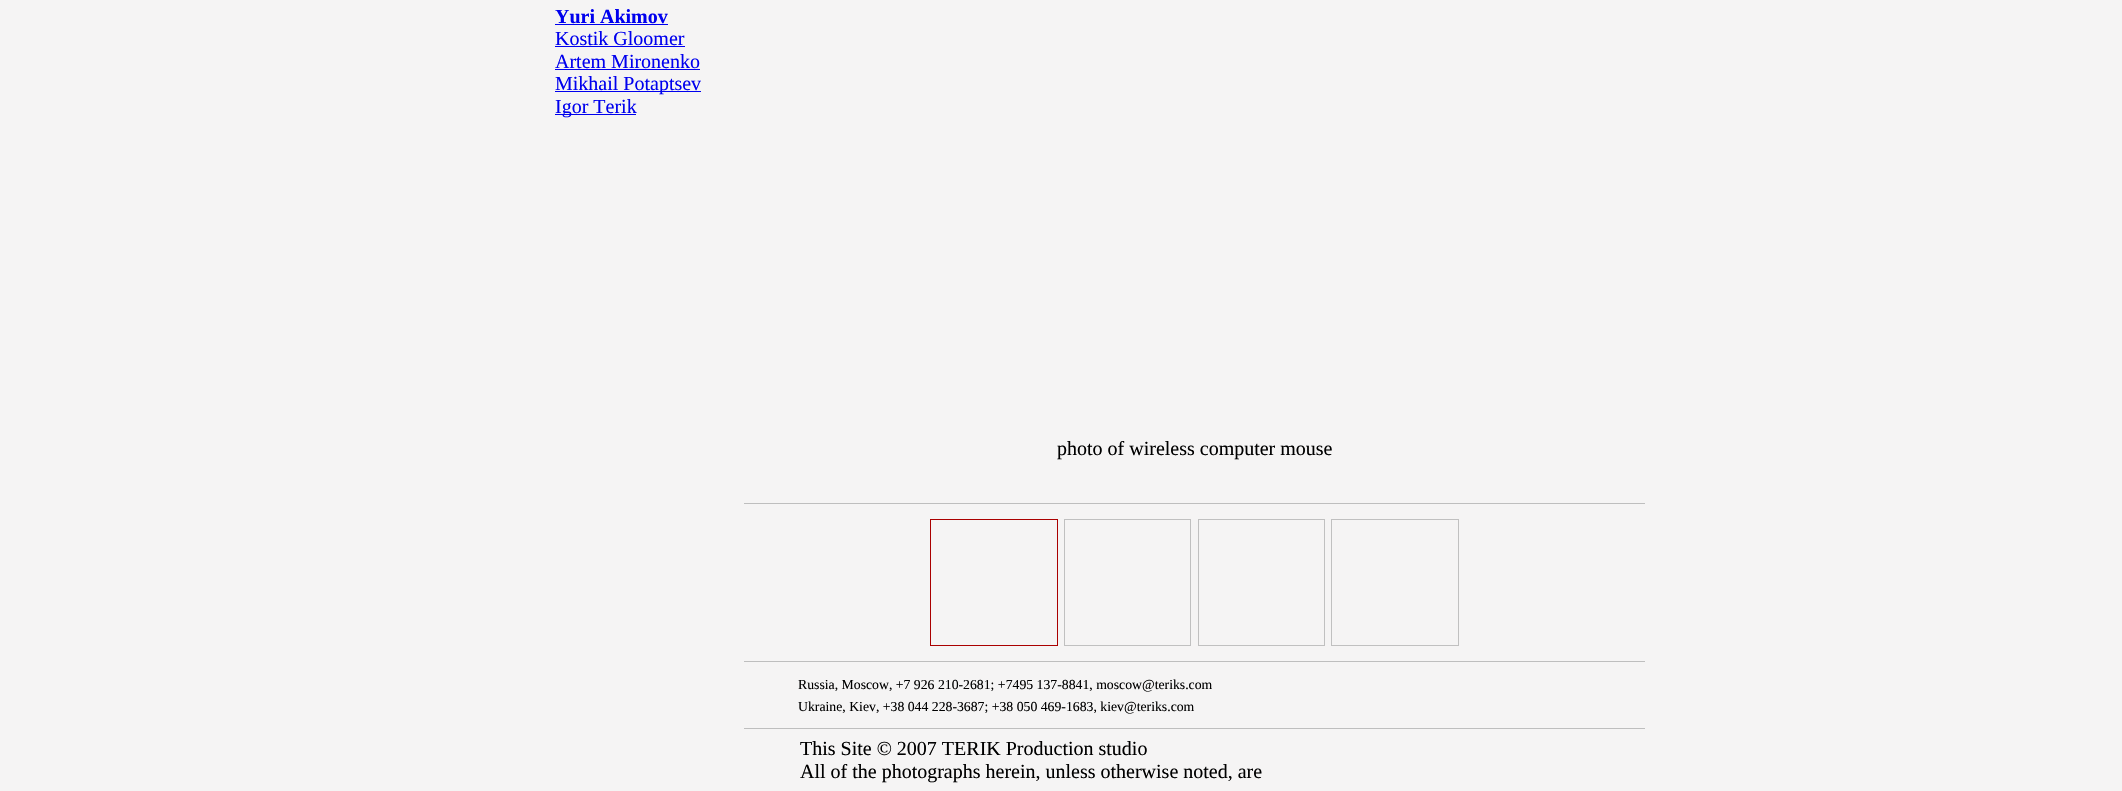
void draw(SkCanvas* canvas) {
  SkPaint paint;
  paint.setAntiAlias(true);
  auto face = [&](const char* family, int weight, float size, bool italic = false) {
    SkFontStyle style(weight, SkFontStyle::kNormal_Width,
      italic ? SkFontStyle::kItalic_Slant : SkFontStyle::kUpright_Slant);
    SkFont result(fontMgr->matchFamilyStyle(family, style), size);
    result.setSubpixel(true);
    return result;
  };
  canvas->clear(0xfff5f4f4);
  {
    const struct { float x, y, w, h; SkColor color; } items[] = {
      {555, 24, 113, 1, 0xff0000ee},
      {555, 46, 130, 1, 0xff0000ee},
      {555, 69, 145, 1, 0xff0000ee},
      {555, 91, 146, 1, 0xff0000ee},
      {555, 114, 81, 1, 0xff0000ee},
      {744, 503, 901, 1, 0xffbebebe},
      {744, 661, 901, 1, 0xffbebebe},
    };
    for (auto [x, y, w, h, color] : items) {
      paint.setColor(color);
      canvas->drawRect(SkRect::MakeXYWH(x, y, w, h), paint);
    }
  }
  paint.setStroke(true);
  paint.setStrokeWidth(1);
  paint.setColor(0xffaa0000);
  canvas->drawRect(SkRect::MakeXYWH(930.5f, 519.5f, 127, 126), paint);
  paint.setColor(0xffc0c0c0);
  canvas->drawRect(SkRect::MakeXYWH(1064.5f, 519.5f, 126, 126), paint);
  canvas->drawRect(SkRect::MakeXYWH(1198.5f, 519.5f, 126, 126), paint);
  canvas->drawRect(SkRect::MakeXYWH(1331.5f, 519.5f, 127, 126), paint);
  paint.setStroke(false);
  paint.setColor(0xffbebebe);
  canvas->drawRect(SkRect::MakeXYWH(744, 728, 901, 1), paint);
  auto f0 = face("Liberation Serif", 700, 20);
  paint.setColor(0xff0000ee);
  canvas->drawString("Yuri Akimov", 555, 23, f0, paint);
  auto f1 = face("Liberation Serif", 400, 20);
  {
    const struct { const char* s; float x, y; } items[] = {
      {"Kostik Gloomer", 555, 45},
      {"Artem Mironenko", 555, 68},
      {"Mikhail Potaptsev", 555, 90},
      {"Igor Terik", 555, 113},
    };
    for (auto [s, x, y] : items) {
      canvas->drawString(s, x, y, f1, paint);
    }
  }
  paint.setColor(0xff000000);
  canvas->drawString("photo of wireless computer mouse", 1057, 455, f1, paint);
  auto f2 = face("Liberation Serif", 400, 13.75f);
  canvas->drawString("Russia, Moscow, +7 926 210-2681; +7495 137-8841, moscow@teriks.com", 798, 689, f2, paint);
  canvas->drawString("Ukraine, Kiev, +38 044 228-3687; +38 050 469-1683, kiev@teriks.com", 798, 711, f2, paint);
  canvas->drawString("This Site © 2007 TERIK Production studio", 800, 755, f1, paint);
  canvas->drawString("All of the photographs herein, unless otherwise noted, are", 800, 778, f1, paint);
}
